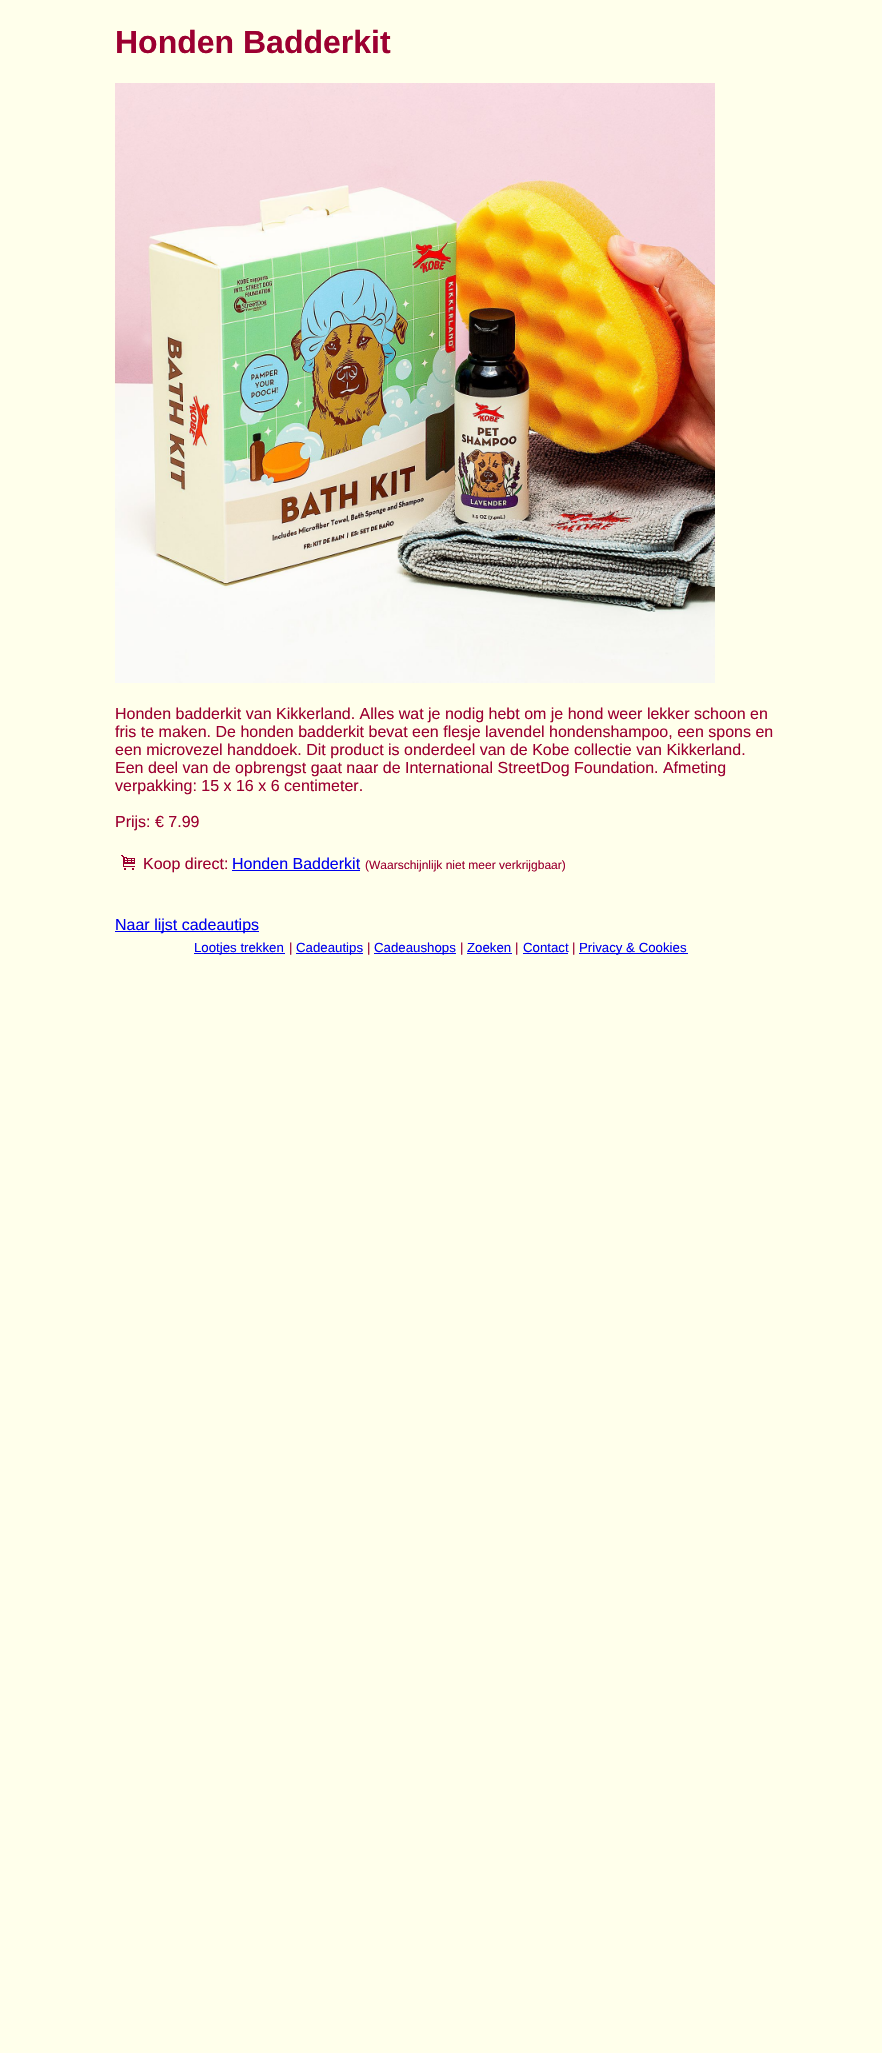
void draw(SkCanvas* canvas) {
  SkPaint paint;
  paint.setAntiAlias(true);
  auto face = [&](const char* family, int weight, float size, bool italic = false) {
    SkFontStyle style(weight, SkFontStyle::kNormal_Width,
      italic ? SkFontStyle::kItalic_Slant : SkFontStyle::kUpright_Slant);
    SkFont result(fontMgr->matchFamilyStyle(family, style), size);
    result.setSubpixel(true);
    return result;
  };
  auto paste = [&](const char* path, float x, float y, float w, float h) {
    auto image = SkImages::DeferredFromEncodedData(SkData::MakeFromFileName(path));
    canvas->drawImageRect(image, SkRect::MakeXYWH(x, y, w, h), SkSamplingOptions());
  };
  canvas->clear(0xffffffeb);
  paste("img/1.png", 115, 83, 600, 600);
  paste("img/2.png", 121, 855, 14, 15);
  {
    const struct { float x, y, w, h; SkColor color; } items[] = {
      {232, 870, 128, 1, 0xff0000ee},
      {115, 931, 144, 1, 0xff0000ee},
      {194, 953, 91, 1, 0xff0000ee},
      {296, 953, 67, 1, 0xff0000ee},
      {374, 953, 82, 1, 0xff0000ee},
      {467, 953, 45, 1, 0xff0000ee},
      {523, 953, 45, 1, 0xff0000ee},
      {579, 953, 109, 1, 0xff0000ee},
    };
    for (auto [x, y, w, h, color] : items) {
      paint.setColor(color);
      canvas->drawRect(SkRect::MakeXYWH(x, y, w, h), paint);
    }
  }
  auto f0 = face("Liberation Sans", 700, 32);
  paint.setColor(0xff9c0031);
  canvas->drawString("Honden Badderkit", 115, 53, f0, paint);
  auto f1 = face("Liberation Sans", 400, 16);
  {
    const struct { const char* s; float x, y; } items[] = {
      {"Honden badderkit van Kikkerland. Alles wat je nodig hebt om je hond weer lekker schoon en", 115, 719},
      {"fris te maken. De honden badderkit bevat een flesje lavendel hondenshampoo, een spons en", 115, 737},
      {"een microvezel handdoek. Dit product is onderdeel van de Kobe collectie van Kikkerland.", 115, 755},
      {"Een deel van de opbrengst gaat naar de International StreetDog Foundation. Afmeting", 115, 773},
      {"verpakking: 15 x 16 x 6 centimeter.", 115, 791},
      {"Prijs: € 7.99", 115, 827},
      {"Koop direct:", 143, 869},
    };
    for (auto [s, x, y] : items) {
      canvas->drawString(s, x, y, f1, paint);
    }
  }
  paint.setColor(0xff0000ee);
  canvas->drawString("Honden Badderkit", 232, 869, f1, paint);
  auto f2 = face("Liberation Sans", 400, 12);
  paint.setColor(0xff9c0031);
  canvas->drawString("(Waarschijnlijk niet meer verkrijgbaar)", 365, 869, f2, paint);
  paint.setColor(0xff0000ee);
  canvas->drawString("Naar lijst cadeautips", 115, 930, f1, paint);
  auto f3 = face("Liberation Sans", 400, 13.25f);
  canvas->drawString("Lootjes trekken", 194, 952, f3, paint);
  paint.setColor(0xff9c0031);
  canvas->drawString("|", 289, 952, f3, paint);
  paint.setColor(0xff0000ee);
  canvas->drawString("Cadeautips", 296, 952, f3, paint);
  paint.setColor(0xff9c0031);
  canvas->drawString("|", 367, 952, f3, paint);
  paint.setColor(0xff0000ee);
  canvas->drawString("Cadeaushops", 374, 952, f3, paint);
  paint.setColor(0xff9c0031);
  canvas->drawString("|", 460, 952, f3, paint);
  paint.setColor(0xff0000ee);
  canvas->drawString("Zoeken", 467, 952, f3, paint);
  paint.setColor(0xff9c0031);
  canvas->drawString("|", 515, 952, f3, paint);
  paint.setColor(0xff0000ee);
  canvas->drawString("Contact", 523, 952, f3, paint);
  paint.setColor(0xff9c0031);
  canvas->drawString("|", 572, 952, f3, paint);
  paint.setColor(0xff0000ee);
  canvas->drawString("Privacy & Cookies", 579, 952, f3, paint);
}
